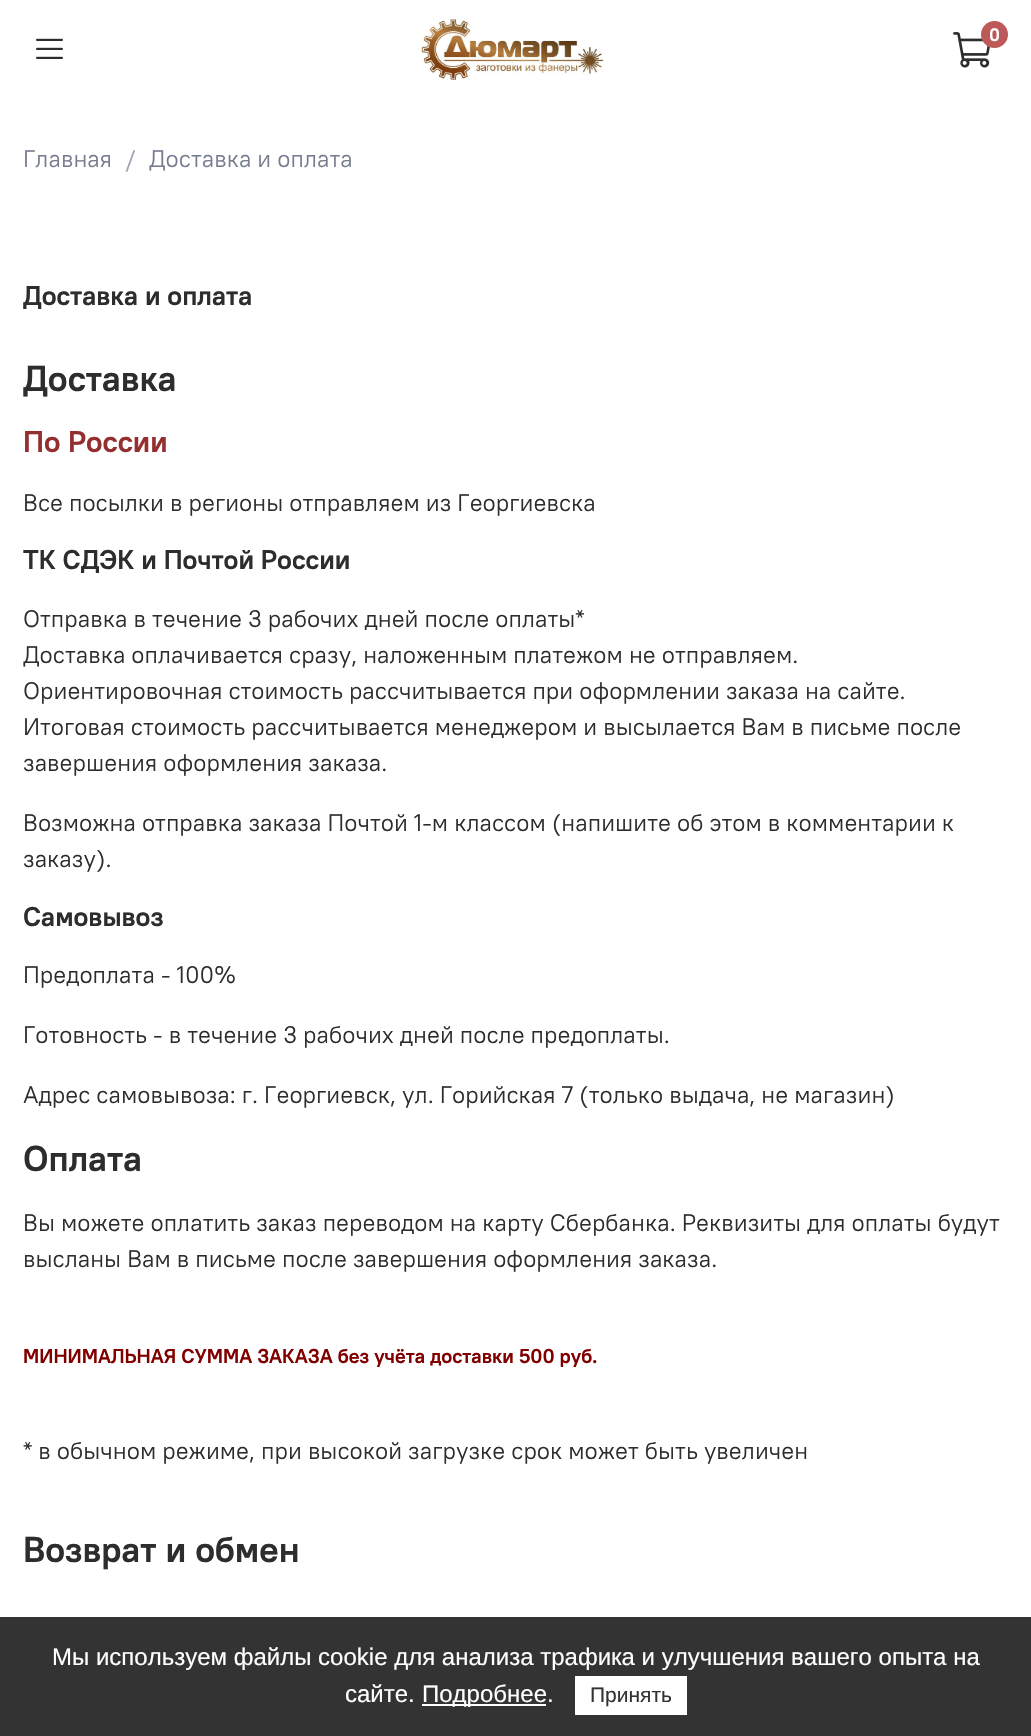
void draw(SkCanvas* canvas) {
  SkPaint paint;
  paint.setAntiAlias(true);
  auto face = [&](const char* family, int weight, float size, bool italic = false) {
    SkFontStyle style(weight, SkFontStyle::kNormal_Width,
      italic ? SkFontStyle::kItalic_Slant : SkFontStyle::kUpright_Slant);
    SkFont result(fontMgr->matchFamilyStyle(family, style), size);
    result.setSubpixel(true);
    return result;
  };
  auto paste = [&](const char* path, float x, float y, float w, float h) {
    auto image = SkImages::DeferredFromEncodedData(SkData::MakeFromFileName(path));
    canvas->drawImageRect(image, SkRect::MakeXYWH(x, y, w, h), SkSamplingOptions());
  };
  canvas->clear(0xffffffff);
  paste("img/1.png", 421, 19, 183, 62);
  paste("img/2.png", 953, 32, 37, 36);
  paint.setColor(0xffbd5959);
  canvas->drawCircle(994.5f, 34.5f, 13.5f, paint);
  paste("img/3.png", 36, 38, 27, 21);
  {
    const struct { float x, y, w, h; SkColor color; } items[] = {
      {0, 1617, 1031, 119, 0xff333333},
      {422, 1704, 124, 2, 0xffffffff},
      {575, 1676, 112, 39, 0xffffffff},
    };
    for (auto [x, y, w, h, color] : items) {
      paint.setColor(color);
      canvas->drawRect(SkRect::MakeXYWH(x, y, w, h), paint);
    }
  }
  auto f0 = face("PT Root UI", 700, 18);
  canvas->drawString("0", 989, 41, f0, paint);
  auto f1 = face("PT Root UI", 400, 24);
  paint.setColor(0xff757c8e);
  canvas->drawString("Главная", 23, 167, f1, paint);
  paint.setColor(0xff9ea3b0);
  canvas->drawString("/", 125, 167, f1, paint);
  paint.setColor(0xff757c8e);
  canvas->drawString("Доставка и оплата", 149, 167, f1, paint);
  auto f2 = face("PT Root UI", 700, 27);
  paint.setColor(0xff2d2d2d);
  canvas->drawString("Доставка и оплата", 23, 305, f2, paint);
  canvas->save();
  canvas->clipRect(SkRect::MakeXYWH(23, 357, 987, 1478));
  auto f3 = face("PT Root UI", 700, 36);
  canvas->drawString("Доставка", 23, 391, f3, paint);
  canvas->restore();
  auto f4 = face("PT Root UI", 700, 30);
  paint.setColor(0xff942f2f);
  canvas->drawString("По России", 23, 452, f4, paint);
  paint.setColor(0xff2d2d2d);
  canvas->drawString("Все посылки в регионы отправляем из Георгиевска", 23, 511, f1, paint);
  canvas->save();
  canvas->clipRect(SkRect::MakeXYWH(23, 357, 987, 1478));
  canvas->drawString("ТК СДЭК и Почтой России", 23, 569, f2, paint);
  canvas->restore();
  {
    const struct { const char* s; float x, y; } items[] = {
      {"Отправка в течение 3 рабочих дней после оплаты*", 23, 627},
      {"Доставка оплачивается сразу, наложенным платежом не отправляем.", 23, 663},
      {"Ориентировочная стоимость рассчитывается при оформлении заказа на сайте.", 23, 699},
      {"Итоговая стоимость рассчитывается менеджером и высылается Вам в письме после", 23, 735},
      {"завершения оформления заказа.", 23, 771},
      {"Возможна отправка заказа Почтой 1-м классом (напишите об этом в комментарии к", 23, 831},
      {"заказу).", 23, 867},
    };
    for (auto [s, x, y] : items) {
      canvas->drawString(s, x, y, f1, paint);
    }
  }
  canvas->drawString("Самовывоз", 23, 926, f2, paint);
  {
    const struct { const char* s; float x, y; } items[] = {
      {"Предоплата - 100%", 23, 983},
      {"Готовность - в течение 3 рабочих дней после предоплаты.", 23, 1043},
      {"Адрес самовывоза: г. Георгиевск, ул. Горийская 7 (только выдача, не магазин)", 23, 1103},
    };
    for (auto [s, x, y] : items) {
      canvas->drawString(s, x, y, f1, paint);
    }
  }
  canvas->drawString("Оплата", 23, 1171, f3, paint);
  canvas->drawString("Вы можете оплатить заказ переводом на карту Сбербанка. Реквизиты для оплаты будут", 23, 1231, f1, paint);
  canvas->drawString("высланы Вам в письме после завершения оформления заказа.", 23, 1267, f1, paint);
  auto f5 = face("PT Root UI", 700, 20);
  paint.setColor(0xff800000);
  canvas->drawString("МИНИМАЛЬНАЯ СУММА ЗАКАЗА без учёта доставки 500 руб.", 23, 1363, f5, paint);
  paint.setColor(0xff2d2d2d);
  canvas->drawString("* в обычном режиме, при высокой загрузке срок может быть увеличен", 23, 1459, f1, paint);
  canvas->drawString("Возврат и обмен", 23, 1562, f3, paint);
  auto f6 = face("Liberation Sans", 400, 24);
  paint.setColor(0xffffffff);
  {
    const struct { const char* s; float x, y; } items[] = {
      {"Мы используем файлы cookie для анализа трафика и улучшения вашего опыта на", 52, 1665},
      {"сайте.", 345, 1702},
      {"Подробнее.", 422, 1702},
    };
    for (auto [s, x, y] : items) {
      canvas->drawString(s, x, y, f6, paint);
    }
  }
  auto f7 = face("Liberation Sans", 400, 21);
  paint.setColor(0xff333333);
  canvas->drawString("Принять", 590, 1702, f7, paint);
}
